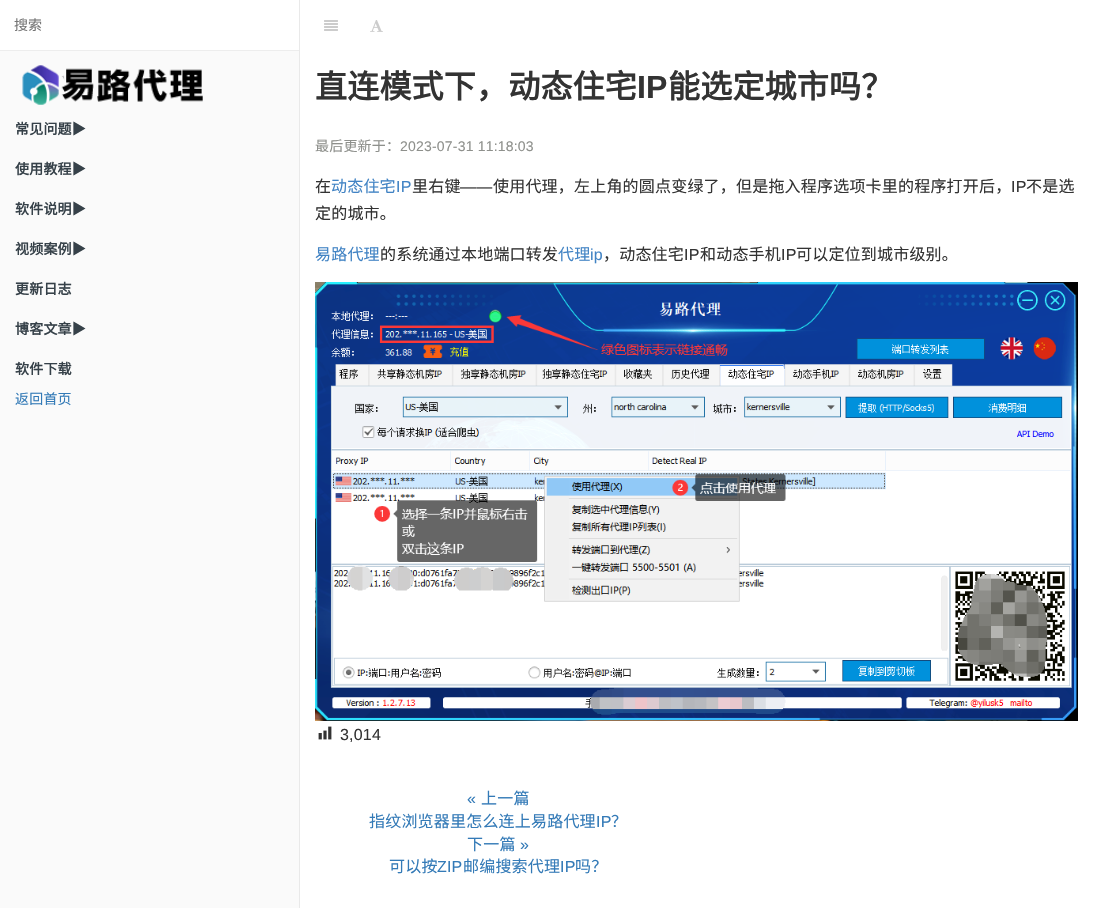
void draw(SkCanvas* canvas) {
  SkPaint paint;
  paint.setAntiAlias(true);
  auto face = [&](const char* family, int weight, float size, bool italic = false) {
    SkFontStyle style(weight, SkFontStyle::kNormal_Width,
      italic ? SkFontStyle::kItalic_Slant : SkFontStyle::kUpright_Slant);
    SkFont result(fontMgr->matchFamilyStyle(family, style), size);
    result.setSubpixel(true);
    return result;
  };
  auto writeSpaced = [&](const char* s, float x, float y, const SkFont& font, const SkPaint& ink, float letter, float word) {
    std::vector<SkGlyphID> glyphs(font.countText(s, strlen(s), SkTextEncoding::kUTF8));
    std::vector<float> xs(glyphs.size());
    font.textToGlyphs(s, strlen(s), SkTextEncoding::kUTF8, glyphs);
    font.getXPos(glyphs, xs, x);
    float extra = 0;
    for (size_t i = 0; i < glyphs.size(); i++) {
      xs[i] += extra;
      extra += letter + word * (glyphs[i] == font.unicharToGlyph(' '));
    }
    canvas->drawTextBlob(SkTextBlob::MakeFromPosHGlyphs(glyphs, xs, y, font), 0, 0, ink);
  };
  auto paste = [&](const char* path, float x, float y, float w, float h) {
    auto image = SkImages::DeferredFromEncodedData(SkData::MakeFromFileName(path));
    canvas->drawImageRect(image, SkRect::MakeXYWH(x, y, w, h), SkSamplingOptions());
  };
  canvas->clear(0xffffffff);
  {
    const struct { float x, y, w, h; SkColor color; } items[] = {
      {0, 51, 299, 857, 0xfffafafa},
      {299, 0, 1, 908, 0xffe9e9e9},
      {0, 50, 299, 1, 0xffededed},
    };
    for (auto [x, y, w, h, color] : items) {
      paint.setColor(color);
      canvas->drawRect(SkRect::MakeXYWH(x, y, w, h), paint);
    }
  }
  paste("img/1.png", 22, 65, 181, 40);
  paste("img/2.png", 324, 20, 14, 11);
  paste("img/3.png", 370, 20, 13, 12);
  paste("img/4.png", 315, 282, 763, 439);
  paste("img/5.png", 318, 726, 14, 14);
  auto f0 = face("Noto Sans CJK SC", 400, 14);
  paint.setColor(0xff757575);
  canvas->drawString("搜索", 14, 30, f0, paint);
  auto f1 = face("Noto Sans CJK SC", 700, 14);
  paint.setColor(0xff364149);
  {
    const struct { const char* s; float x, y; } items[] = {
      {"常见问题▶", 15, 134},
      {"使用教程▶", 15, 174},
      {"软件说明▶", 15, 214},
      {"视频案例▶", 15, 254},
      {"更新日志", 15, 294},
      {"博客文章▶", 15, 334},
      {"软件下载", 15, 374},
    };
    for (auto [s, x, y] : items) {
      writeSpaced(s, x, y, f1, paint, 0.2f, 0);
    }
  }
  paint.setColor(0xff337ab7);
  writeSpaced("返回首页", 15, 404, f0, paint, 0.2f, 0);
  auto f2 = face("Noto Sans CJK SC", 700, 32);
  paint.setColor(0xff333333);
  writeSpaced("直连模式下，动态住宅", 315, 98, f2, paint, 0.2f, 0);
  auto f3 = face("Liberation Sans", 700, 32);
  writeSpaced("IP", 637, 98, f3, paint, 0.2f, 0);
  writeSpaced("能选定城市吗？", 668, 98, f2, paint, 0.2f, 0);
  paint.setColor(0xff8e908c);
  writeSpaced("最后更新于：", 315, 151, f0, paint, 0.2f, 0);
  auto f4 = face("Liberation Sans", 400, 14);
  writeSpaced("2023-07-31 11:18:03", 400, 151, f4, paint, 0.2f, 0);
  auto f5 = face("Noto Sans CJK SC", 400, 16);
  paint.setColor(0xff333333);
  writeSpaced("在", 315, 192, f5, paint, 0.2f, 0);
  paint.setColor(0xff4183c4);
  writeSpaced("动态住宅", 331, 192, f5, paint, 0.2f, 0);
  auto f6 = face("Liberation Sans", 400, 16);
  writeSpaced("IP", 396, 192, f6, paint, 0.2f, 0);
  paint.setColor(0xff333333);
  writeSpaced("里右键", 412, 192, f5, paint, 0.2f, 0);
  writeSpaced("——", 460, 192, f6, paint, 0.2f, 0);
  writeSpaced("使用代理，左上角的圆点变绿了，但是拖入程序选项卡里的程序打开后，", 493, 192, f5, paint, 0.2f, 0);
  writeSpaced("IP", 1011, 192, f6, paint, 0.2f, 0);
  writeSpaced("不是选", 1026, 192, f5, paint, 0.2f, 0);
  writeSpaced("定的城市。", 315, 219, f5, paint, 0.2f, 0);
  paint.setColor(0xff4183c4);
  writeSpaced("易路代理", 315, 260, f5, paint, 0.2f, 0);
  paint.setColor(0xff333333);
  writeSpaced("的系统通过本地端口转发", 380, 260, f5, paint, 0.2f, 0);
  paint.setColor(0xff4183c4);
  writeSpaced("代理", 558, 260, f5, paint, 0.2f, 0);
  writeSpaced("ip", 590, 260, f6, paint, 0.2f, 0);
  paint.setColor(0xff333333);
  writeSpaced("，动态住宅", 603, 260, f5, paint, 0.2f, 0);
  writeSpaced("IP", 684, 260, f6, paint, 0.2f, 0);
  writeSpaced("和动态手机", 700, 260, f5, paint, 0.2f, 0);
  writeSpaced("IP", 781, 260, f6, paint, 0.2f, 0);
  writeSpaced("可以定位到城市级别。", 796, 260, f5, paint, 0.2f, 0);
  writeSpaced("3,014", 340, 740, f6, paint, 0.2f, 0);
  paint.setColor(0xff337ab7);
  writeSpaced("«", 467, 804, f6, paint, 0.2f, 0);
  writeSpaced("上一篇", 481, 804, f5, paint, 0.2f, 0);
  writeSpaced("指纹浏览器里怎么连上易路代理", 369, 827, f5, paint, 0.2f, 0);
  writeSpaced("IP", 596, 827, f6, paint, 0.2f, 0);
  writeSpaced("？", 611, 827, f5, paint, 0.2f, 0);
  writeSpaced("下一篇", 467, 850, f5, paint, 0.2f, 0);
  writeSpaced("»", 520, 850, f6, paint, 0.2f, 0);
  writeSpaced("可以按", 389, 872, f5, paint, 0.2f, 0);
  writeSpaced("ZIP", 437, 872, f6, paint, 0.2f, 0);
  writeSpaced("邮编搜索代理", 463, 872, f5, paint, 0.2f, 0);
  writeSpaced("IP", 560, 872, f6, paint, 0.2f, 0);
  writeSpaced("吗？", 575, 872, f5, paint, 0.2f, 0);
}
